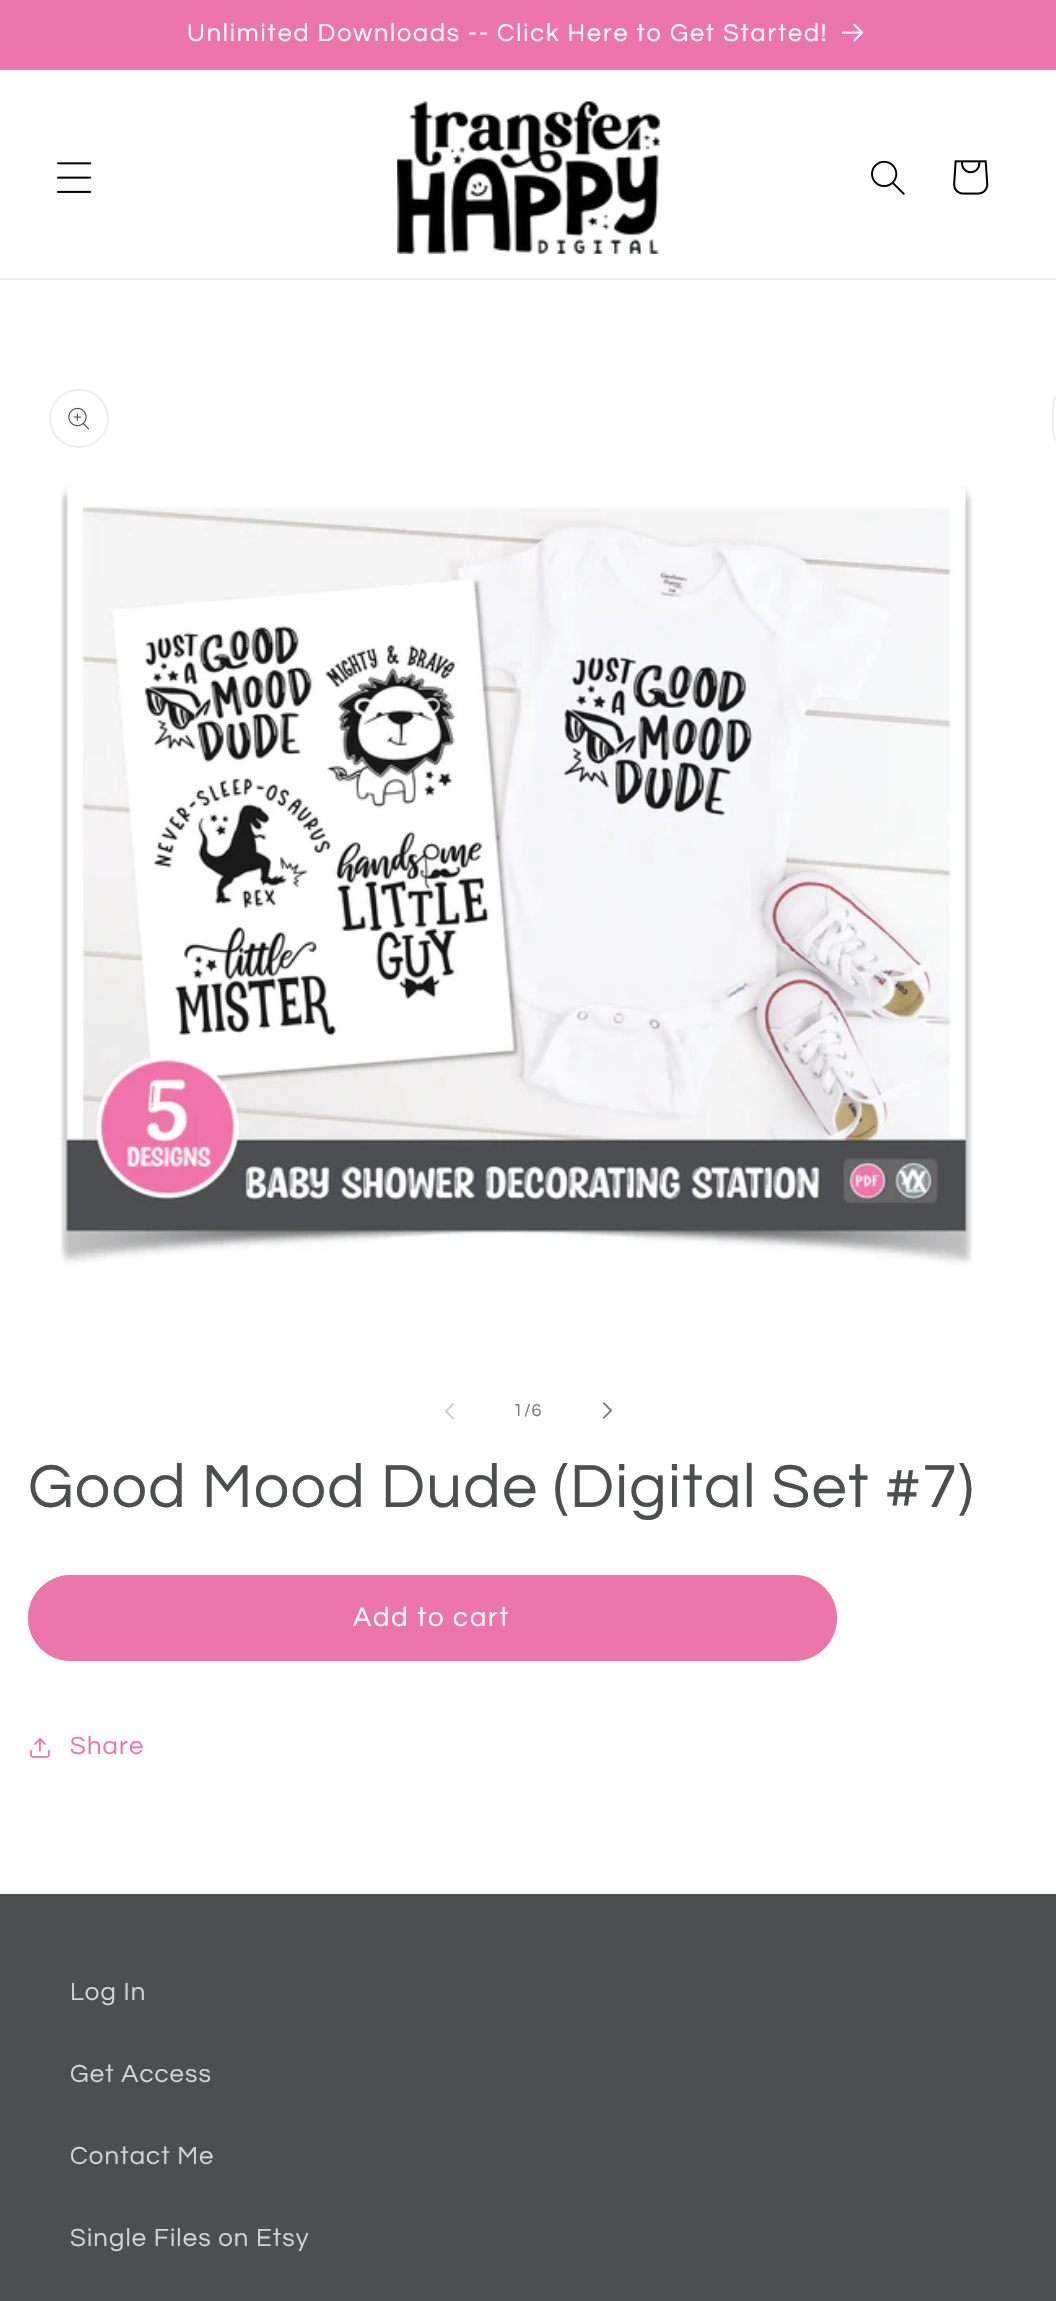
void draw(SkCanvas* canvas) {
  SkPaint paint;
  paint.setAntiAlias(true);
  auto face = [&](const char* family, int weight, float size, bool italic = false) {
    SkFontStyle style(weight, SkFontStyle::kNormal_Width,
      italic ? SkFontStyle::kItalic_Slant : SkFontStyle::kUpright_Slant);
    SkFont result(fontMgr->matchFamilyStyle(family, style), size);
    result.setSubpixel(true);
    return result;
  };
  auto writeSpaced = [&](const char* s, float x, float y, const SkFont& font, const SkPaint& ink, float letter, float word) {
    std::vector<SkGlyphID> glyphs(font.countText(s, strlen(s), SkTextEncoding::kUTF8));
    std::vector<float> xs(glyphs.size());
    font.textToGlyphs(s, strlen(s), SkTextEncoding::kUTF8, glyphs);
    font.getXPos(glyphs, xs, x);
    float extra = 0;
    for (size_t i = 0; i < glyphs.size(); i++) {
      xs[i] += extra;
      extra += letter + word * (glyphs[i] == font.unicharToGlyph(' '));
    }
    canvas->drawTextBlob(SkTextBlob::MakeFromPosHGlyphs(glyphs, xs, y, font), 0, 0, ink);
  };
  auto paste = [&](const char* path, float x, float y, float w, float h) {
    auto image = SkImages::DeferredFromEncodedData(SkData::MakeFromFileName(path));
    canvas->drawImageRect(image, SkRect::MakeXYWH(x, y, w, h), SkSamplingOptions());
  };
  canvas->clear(0xffffffff);
  paint.setColor(0xffec75ab);
  canvas->drawRect(SkRect::MakeXYWH(0, 0, 1056, 70), paint);
  paste("img/1.png", 842, 23, 22, 19);
  paint.setColor(0xffebebeb);
  canvas->drawRect(SkRect::MakeXYWH(0, 278, 1056, 2), paint);
  paste("img/2.png", 57, 162, 35, 31);
  paste("img/3.png", 397, 101, 263, 153);
  paste("img/4.png", 871, 160, 34, 35);
  paste("img/5.png", 953, 160, 36, 35);
  paint.setStroke(true);
  paint.setStrokeWidth(2);
  paint.setColor(0xffededee);
  canvas->drawRoundRect(SkRect::MakeXYWH(50, 390, 58, 57), 28.5f, 28.5f, paint);
  paste("img/6.png", 68, 407, 21, 23);
  paste("img/7.png", 60, 486, 913, 779);
  canvas->drawRoundRect(SkRect::MakeXYWH(1053, 390, 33, 57), 28, 28, paint);
  paste("img/8.png", 445, 1403, 9, 17);
  paste("img/9.png", 602, 1402, 10, 17);
  paint.setStroke(false);
  paint.setColor(0xffec75ab);
  canvas->drawRoundRect(SkRect::MakeXYWH(28, 1575, 809, 86), 43, 43, paint);
  paint.setStroke(true);
  canvas->drawRoundRect(SkRect::MakeXYWH(29, 1576, 807, 84), 42, 42, paint);
  paste("img/10.png", 30, 1738, 20, 20);
  paint.setStroke(false);
  paint.setColor(0xff4d4e50);
  canvas->drawRect(SkRect::MakeXYWH(0, 1894, 1056, 407), paint);
  auto f0 = face("Questrial", 400, 25.2f);
  paint.setColor(0xffffffff);
  writeSpaced("Unlimited Downloads -- Click Here to Get Started!", 187, 41, f0, paint, 1.85f, 0);
  auto f1 = face("Questrial", 400, 18);
  paint.setColor(0xff7a7a7c);
  writeSpaced("1/6", 513, 1416, f1, paint, 1, 0);
  auto f2 = face("Questrial", 400, 63);
  paint.setColor(0xff4d4e50);
  writeSpaced("Good Mood Dude (Digital Set #7)", 28, 1507, f2, paint, 1.25f, 0);
  auto f3 = face("Questrial", 400, 27.5f);
  paint.setColor(0xffffffff);
  writeSpaced("Add to cart", 353, 1626, f3, paint, 1.85f, 0);
  auto f4 = face("Questrial", 400, 25.75f);
  paint.setColor(0xffec75ab);
  writeSpaced("Share", 70, 1754, f4, paint, 1.1f, 0);
  paint.setColor(0xffd3d3d3);
  {
    const struct { const char* s; float x, y; } items[] = {
      {"Log In", 70, 2000},
      {"Get Access", 70, 2082},
      {"Contact Me", 70, 2164},
      {"Single Files on Etsy", 70, 2246},
    };
    for (auto [s, x, y] : items) {
      writeSpaced(s, x, y, f4, paint, 1.1f, 0);
    }
  }
}
